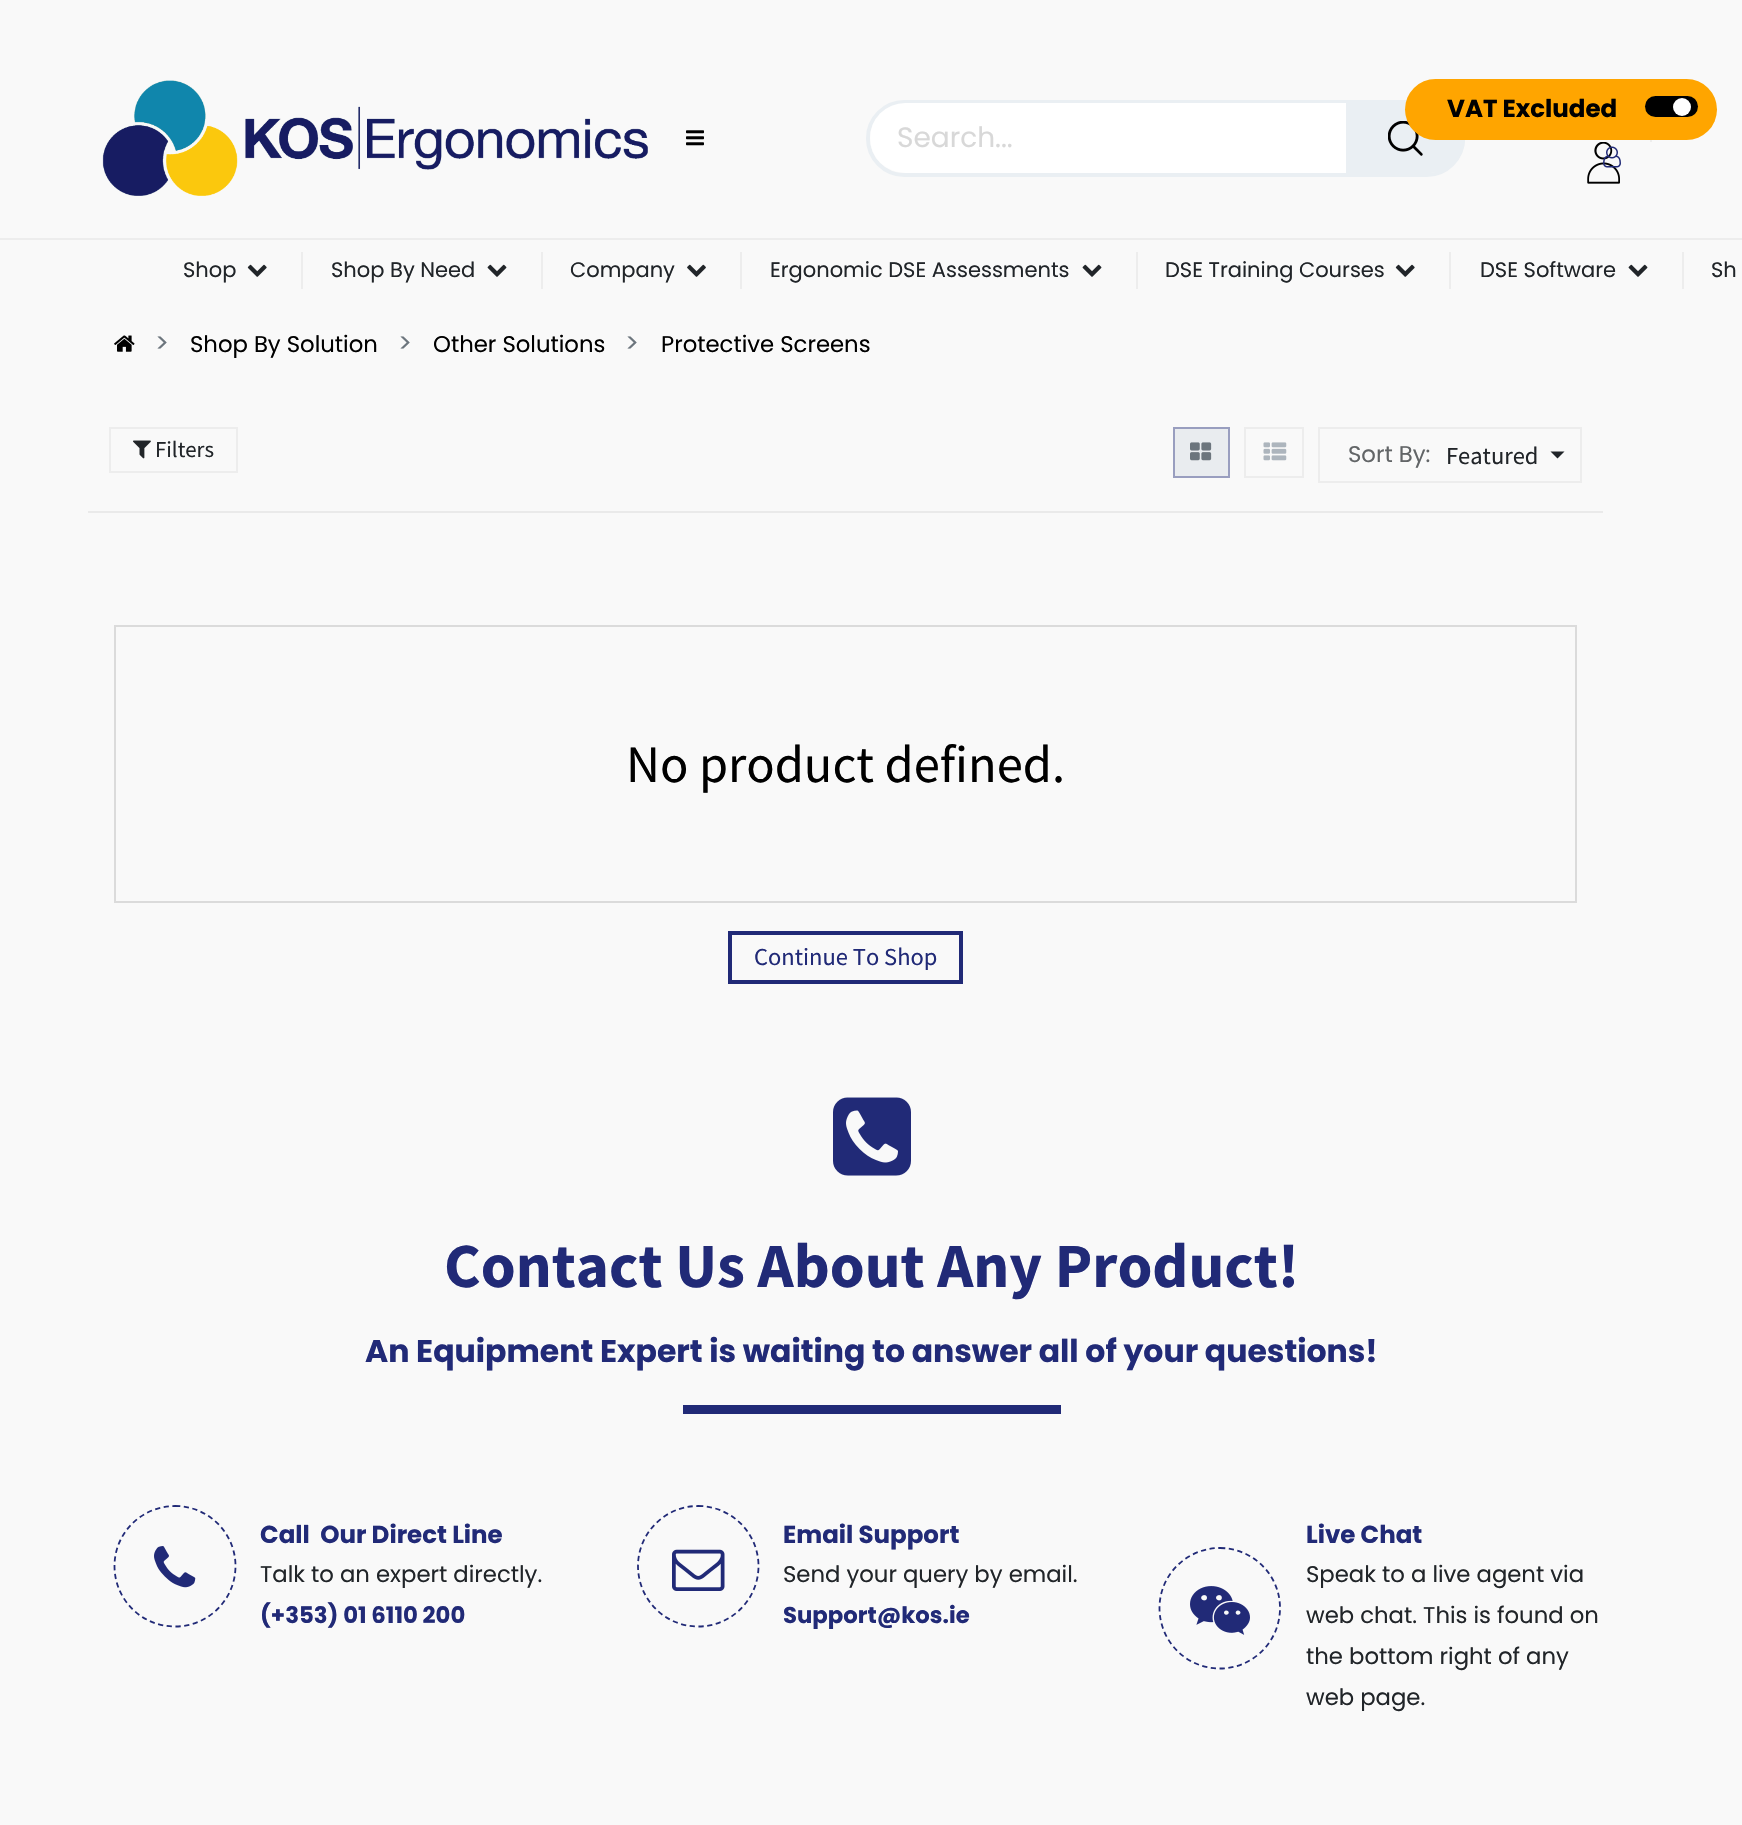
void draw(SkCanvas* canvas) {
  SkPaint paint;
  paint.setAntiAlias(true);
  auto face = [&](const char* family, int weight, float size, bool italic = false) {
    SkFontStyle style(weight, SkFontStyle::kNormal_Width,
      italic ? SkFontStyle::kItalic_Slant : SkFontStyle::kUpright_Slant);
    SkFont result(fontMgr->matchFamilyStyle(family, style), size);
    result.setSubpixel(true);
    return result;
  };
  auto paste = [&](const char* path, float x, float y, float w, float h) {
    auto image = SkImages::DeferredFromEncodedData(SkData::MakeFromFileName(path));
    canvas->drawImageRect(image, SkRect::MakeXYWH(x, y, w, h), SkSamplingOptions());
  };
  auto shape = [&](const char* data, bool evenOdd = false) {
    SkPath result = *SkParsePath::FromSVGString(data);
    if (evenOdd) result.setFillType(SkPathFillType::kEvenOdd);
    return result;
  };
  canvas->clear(0xfff9f9f9);
  paint.setStroke(true);
  paint.setStrokeWidth(4);
  paint.setColor(0xffeaeff3);
  canvas->drawRoundRect(SkRect::MakeXYWH(868, 102, 595, 73), 36.5f, 36.5f, paint);
  paint.setStroke(false);
  paint.setColor(0xffffffff);
  canvas->drawRoundRect(SkRect::MakeXYWH(870, 103, 593, 70), 35, 35, paint);
  paint.setColor(0xffeaeff3);
  canvas->drawPath(shape("M1346 103H1430C1449.5 103 1465 118.5 1465 138C1465 157.5 1449.5 173 1430 173H1346Z"), paint);
  paste("img/3.png", 1388, 121, 35, 35);
  paint.setColor(0xffffa500);
  canvas->drawRoundRect(SkRect::MakeXYWH(1405, 79, 312, 61), 30.5f, 30.5f, paint);
  paint.setColor(0xff000000);
  canvas->drawRoundRect(SkRect::MakeXYWH(1645, 96, 53, 21), 10.5f, 10.5f, paint);
  paint.setColor(0xffffffff);
  canvas->drawCircle(1682, 107, 9, paint);
  paste("img/1.png", 102, 80, 546, 116);
  paste("img/2.png", 686, 130, 18, 16);
  paint.setColor(0xffededed);
  canvas->drawRect(SkRect::MakeXYWH(1650, 140, 2, 2), paint);
  paste("img/4.png", 1587, 142, 33, 42);
  paste("img/5.png", 1603, 146, 18, 22);
  canvas->drawRect(SkRect::MakeXYWH(0, 238, 1742, 2), paint);
  paste("img/6.png", 247, 264, 20, 13);
  canvas->drawRect(SkRect::MakeXYWH(301, 252, 2, 37), paint);
  paste("img/7.png", 487, 264, 20, 13);
  canvas->drawRect(SkRect::MakeXYWH(541, 252, 2, 37), paint);
  paste("img/8.png", 687, 264, 19, 13);
  canvas->drawRect(SkRect::MakeXYWH(740, 252, 2, 37), paint);
  paste("img/7.png", 1082, 264, 20, 13);
  canvas->drawRect(SkRect::MakeXYWH(1136, 252, 2, 37), paint);
  paste("img/6.png", 1395, 264, 20, 13);
  canvas->drawRect(SkRect::MakeXYWH(1449, 252, 2, 37), paint);
  paste("img/7.png", 1628, 264, 20, 13);
  canvas->drawRect(SkRect::MakeXYWH(1682, 252, 2, 37), paint);
  paste("img/9.png", 114, 335, 21, 17);
  paint.setColor(0xffeaeaea);
  canvas->drawRect(SkRect::MakeXYWH(88, 511, 1515, 2), paint);
  paint.setStroke(true);
  paint.setStrokeWidth(2);
  paint.setColor(0xffededed);
  canvas->drawRect(SkRect::MakeXYWH(110, 428, 127, 44), paint);
  paste("img/10.png", 133, 440, 18, 19);
  paint.setStroke(false);
  paint.setColor(0xffe9ecef);
  canvas->drawRect(SkRect::MakeXYWH(1174, 428, 55, 49), paint);
  paint.setStroke(true);
  paint.setColor(0xff999ebf);
  canvas->drawRect(SkRect::MakeXYWH(1174, 428, 55, 49), paint);
  paste("img/11.png", 1190, 442, 22, 19);
  paint.setColor(0xffededed);
  canvas->drawRect(SkRect::MakeXYWH(1245, 428, 58, 49), paint);
  paste("img/12.png", 1263, 442, 24, 19);
  canvas->drawRect(SkRect::MakeXYWH(1319, 428, 262, 54), paint);
  paint.setStroke(false);
  paint.setColor(0xff212529);
  canvas->drawPath(shape("M1550.5 451.5H1564.5L1557.5 458.5Z"), paint);
  paint.setStroke(true);
  paint.setColor(0xffdbdbdb);
  canvas->drawRect(SkRect::MakeXYWH(115, 626, 1461, 276), paint);
  paint.setStrokeWidth(4);
  paint.setColor(0xff212a77);
  canvas->drawRect(SkRect::MakeXYWH(730, 933, 231, 49), paint);
  paste("img/13.png", 833, 1097, 78, 79);
  paint.setStroke(false);
  canvas->drawRect(SkRect::MakeXYWH(683, 1405, 378, 9), paint);
  paint.setStroke(true);
  paint.setStrokeWidth(1.8f);
  paint.setPathEffect(SkDashPathEffect::Make({{5.25f, 3.5f}}, 0));
  canvas->drawPath(shape("M175 1506C208.5 1506 235.5 1533 235.5 1566C235.5 1599.5 208.5 1626.5 175 1626.5C141.5 1626.5 114.5 1599.5 114.5 1566C114.5 1533 141.5 1506 175 1506Z"), paint);
  paint.setPathEffect(nullptr);
  paste("img/14.png", 154, 1546, 42, 42);
  paint.setPathEffect(SkDashPathEffect::Make({{5.25f, 3.5f}}, 0));
  canvas->drawPath(shape("M698 1506C731.5 1506 758.5 1533 758.5 1566C758.5 1599.5 731.5 1626.5 698 1626.5C665 1626.5 638 1599.5 638 1566C638 1533 665 1506 698 1506Z"), paint);
  paint.setPathEffect(nullptr);
  paste("img/15.png", 672, 1549, 53, 42);
  paint.setPathEffect(SkDashPathEffect::Make({{5.25f, 3.5f}}, 0));
  canvas->drawPath(shape("M1220 1548C1253 1548 1280 1575 1280 1608C1280 1641.5 1253 1668.5 1220 1668.5C1186.5 1668.5 1159.5 1641.5 1159.5 1608C1159.5 1575 1186.5 1548 1220 1548Z"), paint);
  paint.setPathEffect(nullptr);
  paste("img/16.png", 1190, 1586, 60, 49);
  auto f0 = face("Poppins", 700, 24.5f);
  paint.setStroke(false);
  paint.setColor(0xff000000);
  canvas->drawString("VAT Excluded", 1447, 117, f0, paint);
  auto f1 = face("Poppins", 400, 28);
  paint.setColor(0xffd8d8d8);
  canvas->drawString("Search...", 897, 147, f1, paint);
  auto f2 = face("Poppins", 400, 21);
  paint.setColor(0xff212529);
  {
    const struct { const char* s; float x, y; } items[] = {
      {"Shop", 183, 277},
      {"Shop By Need", 331, 277},
      {"Company", 570, 277},
      {"Ergonomic DSE Assessments", 770, 277},
      {"DSE Training Courses", 1165, 277},
      {"DSE Software", 1480, 277},
      {"Sh", 1711, 277},
    };
    for (auto [s, x, y] : items) {
      canvas->drawString(s, x, y, f2, paint);
    }
  }
  auto f3 = face("Poppins", 400, 26);
  paint.setColor(0xff6c757d);
  canvas->drawString(">", 155, 352, f3, paint);
  auto f4 = face("Poppins", 400, 22.75f);
  paint.setColor(0xff000000);
  canvas->drawString("Shop By Solution", 190, 352, f4, paint);
  paint.setColor(0xff6c757d);
  canvas->drawString(">", 398, 352, f3, paint);
  paint.setColor(0xff000000);
  canvas->drawString("Other Solutions", 433, 352, f4, paint);
  paint.setColor(0xff6c757d);
  canvas->drawString(">", 625, 352, f3, paint);
  paint.setColor(0xff000000);
  canvas->drawString("Protective Screens", 661, 352, f4, paint);
  auto f5 = face("Source Sans Pro", 400, 22.75f);
  paint.setColor(0xff212529);
  canvas->drawString("Filters", 155, 457, f5, paint);
  paint.setColor(0xff626567);
  canvas->drawString("Sort By:", 1348, 462, f4, paint);
  auto f6 = face("Source Sans Pro", 400, 24.5f);
  paint.setColor(0xff212529);
  canvas->drawString("Featured", 1446, 464, f6, paint);
  auto f7 = face("Source Sans Pro", 400, 52.5f);
  paint.setColor(0xff000000);
  canvas->drawString("No product defined.", 626, 782, f7, paint);
  paint.setColor(0xff212a77);
  canvas->drawString("Continue To Shop", 754, 965, f6, paint);
  auto f8 = face("Source Sans Pro", 700, 63);
  canvas->drawString("Contact Us About Any Product!", 444, 1287, f8, paint);
  auto f9 = face("Poppins", 700, 31.5f);
  canvas->drawString("An Equipment Expert is waiting to answer all of your questions!", 365, 1362, f9, paint);
  canvas->drawString("Call  Our Direct Line", 260, 1543, f0, paint);
  paint.setColor(0xff212529);
  canvas->drawString("Talk to an expert directly.", 260, 1582, f4, paint);
  auto f10 = face("Poppins", 700, 22.75f);
  paint.setColor(0xff212a77);
  canvas->drawString("(+353) 01 6110 200", 260, 1623, f10, paint);
  canvas->drawString("Email Support", 783, 1543, f0, paint);
  paint.setColor(0xff212529);
  canvas->drawString("Send your query by email.", 783, 1582, f4, paint);
  paint.setColor(0xff212a77);
  canvas->drawString("Support@kos.ie", 783, 1623, f10, paint);
  canvas->drawString("Live Chat", 1306, 1543, f0, paint);
  paint.setColor(0xff212529);
  {
    const struct { const char* s; float x, y; } items[] = {
      {"Speak to a live agent via", 1306, 1582},
      {"web chat. This is found on", 1306, 1623},
      {"the bottom right of any", 1306, 1664},
      {"web page.", 1306, 1705},
    };
    for (auto [s, x, y] : items) {
      canvas->drawString(s, x, y, f4, paint);
    }
  }
}
